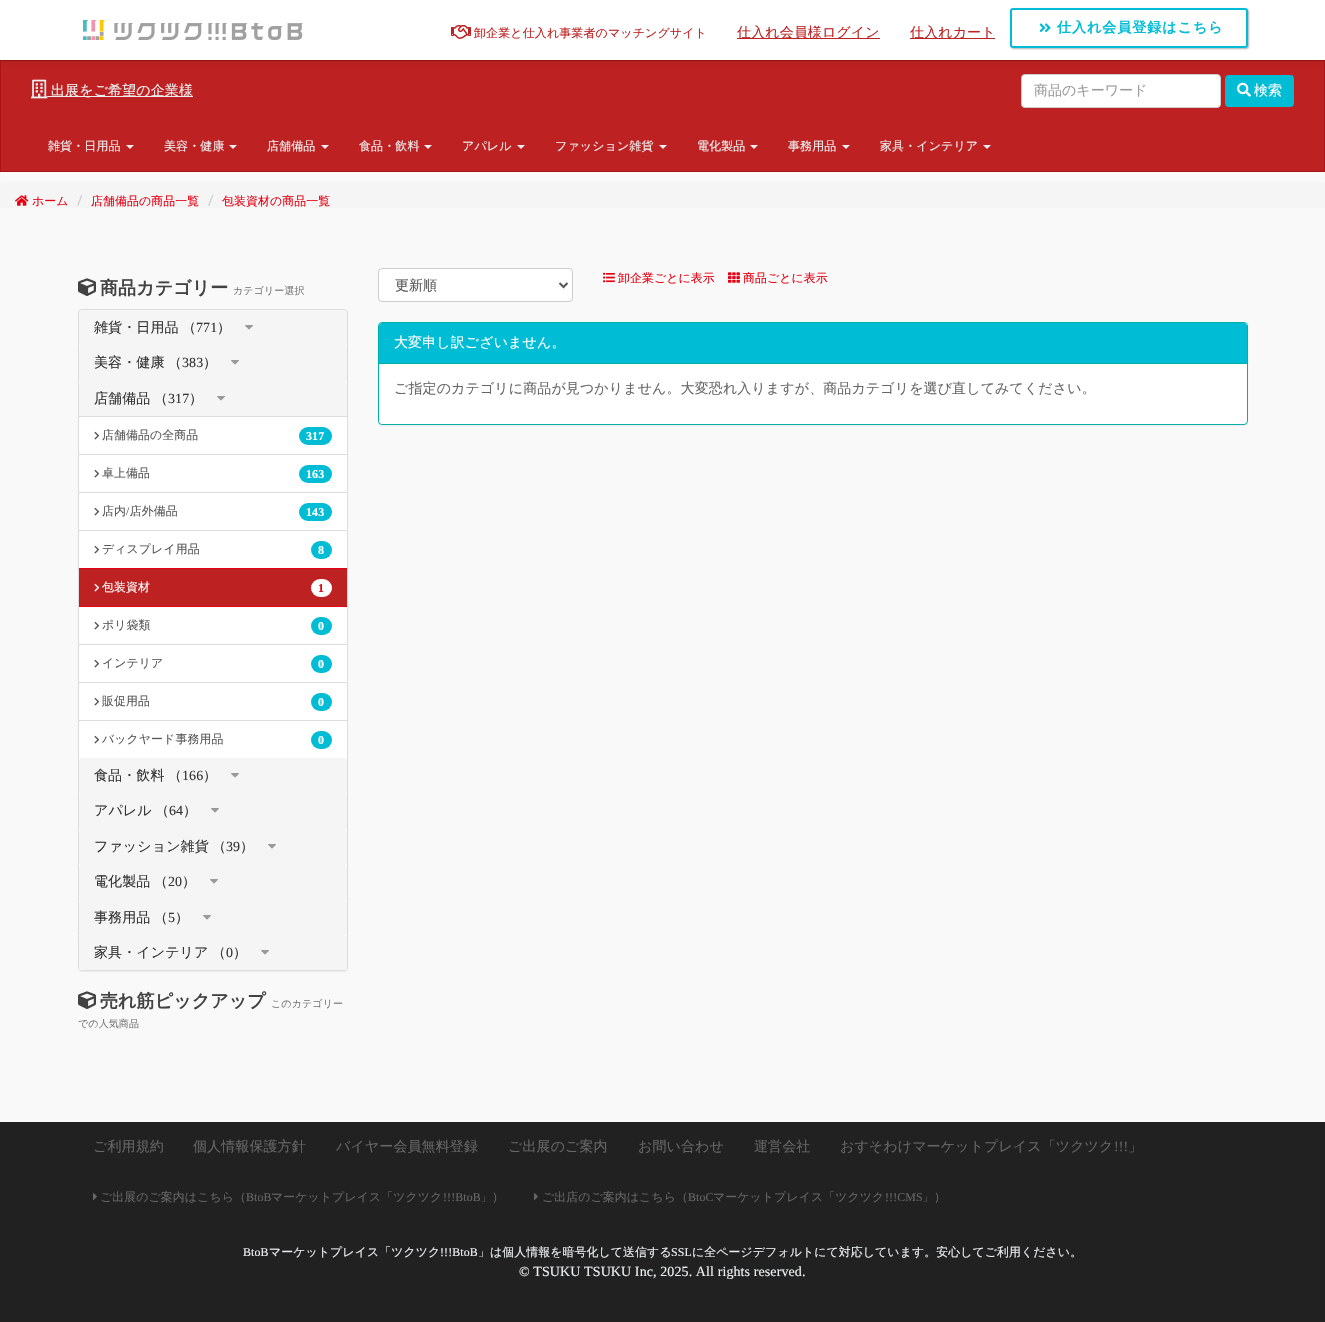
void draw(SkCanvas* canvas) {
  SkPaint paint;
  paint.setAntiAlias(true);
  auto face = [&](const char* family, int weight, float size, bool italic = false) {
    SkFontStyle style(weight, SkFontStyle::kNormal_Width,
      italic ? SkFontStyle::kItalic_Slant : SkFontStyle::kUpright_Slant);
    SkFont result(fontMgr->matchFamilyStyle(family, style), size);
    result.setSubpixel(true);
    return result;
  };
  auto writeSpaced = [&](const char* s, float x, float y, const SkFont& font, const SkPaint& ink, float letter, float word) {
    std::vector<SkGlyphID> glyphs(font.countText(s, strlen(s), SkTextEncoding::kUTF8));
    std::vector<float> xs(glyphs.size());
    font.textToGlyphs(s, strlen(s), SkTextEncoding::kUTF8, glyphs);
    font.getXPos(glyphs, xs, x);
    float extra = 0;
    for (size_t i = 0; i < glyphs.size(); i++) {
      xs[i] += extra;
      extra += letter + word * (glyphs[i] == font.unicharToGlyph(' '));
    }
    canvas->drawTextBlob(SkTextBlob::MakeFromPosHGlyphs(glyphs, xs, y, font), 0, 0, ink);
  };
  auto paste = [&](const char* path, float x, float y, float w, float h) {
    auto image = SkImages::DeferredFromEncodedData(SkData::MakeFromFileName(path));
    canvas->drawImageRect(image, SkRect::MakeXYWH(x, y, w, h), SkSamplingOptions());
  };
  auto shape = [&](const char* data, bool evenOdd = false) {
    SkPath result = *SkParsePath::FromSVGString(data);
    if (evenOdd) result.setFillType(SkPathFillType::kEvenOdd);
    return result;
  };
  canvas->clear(0xfff9f9f9);
  paint.setColor(0xffbd2121);
  canvas->drawRect(SkRect::MakeXYWH(0.5f, 60.5f, 1324, 111), paint);
  paint.setStroke(true);
  paint.setStrokeWidth(1);
  paint.setColor(0xffa81313);
  canvas->drawRect(SkRect::MakeXYWH(0.5f, 60.5f, 1324, 111), paint);
  paint.setStroke(false);
  paint.setColor(0x0f000000);
  paint.setMaskFilter(SkMaskFilter::MakeBlur(kNormal_SkBlurStyle, 2.5f));
  canvas->drawRect(SkRect::MakeXYWH(1, 2, 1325, 60), paint);
  paint.setMaskFilter(nullptr);
  paint.setColor(0x12000000);
  paint.setMaskFilter(SkMaskFilter::MakeBlur(kNormal_SkBlurStyle, 0.5f));
  canvas->drawRect(SkRect::MakeXYWH(1, 1, 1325, 60), paint);
  paint.setMaskFilter(nullptr);
  paint.setColor(0xffffffff);
  canvas->drawRect(SkRect::MakeXYWH(0, 0, 1325, 60), paint);
  paste("img/1.png", 83, 20, 220, 20);
  paste("img/2.png", 451, 25, 20, 14);
  paint.setColor(0xffbd2121);
  canvas->drawRect(SkRect::MakeXYWH(737, 38, 143, 1), paint);
  canvas->drawRect(SkRect::MakeXYWH(910, 38, 85, 1), paint);
  canvas->save();
  canvas->clipPath(shape("M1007 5H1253V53H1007ZM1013 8H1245C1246.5 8 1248 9.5 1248 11V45C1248 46.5 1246.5 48 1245 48H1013C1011.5 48 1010 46.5 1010 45V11C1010 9.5 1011.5 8 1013 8Z", true), true);
  paint.setColor(0x4d000000);
  paint.setMaskFilter(SkMaskFilter::MakeBlur(kNormal_SkBlurStyle, 1));
  canvas->drawRoundRect(SkRect::MakeXYWH(1011, 9, 238, 40), 3, 3, paint);
  paint.setMaskFilter(nullptr);
  canvas->restore();
  paint.setStroke(true);
  paint.setStrokeWidth(2);
  paint.setColor(0xff00bcd4);
  canvas->drawRoundRect(SkRect::MakeXYWH(1011, 9, 236, 38), 2, 2, paint);
  paste("img/3.png", 1039, 23, 12, 10);
  paste("img/4.png", 31, 79, 17, 20);
  paint.setStroke(false);
  paint.setColor(0xffeceff1);
  canvas->drawRect(SkRect::MakeXYWH(47, 96, 146, 1), paint);
  paint.setColor(0xffffffff);
  canvas->drawRoundRect(SkRect::MakeXYWH(1021.5f, 74.5f, 199, 33), 3.5f, 3.5f, paint);
  paint.setStroke(true);
  paint.setStrokeWidth(1);
  paint.setColor(0xffcccccc);
  canvas->drawRoundRect(SkRect::MakeXYWH(1021.5f, 74.5f, 199, 33), 3.5f, 3.5f, paint);
  paint.setStroke(false);
  paint.setColor(0xff00bcd4);
  canvas->drawRoundRect(SkRect::MakeXYWH(1225, 75, 69, 32), 4, 4, paint);
  paste("img/5.png", 1237, 82, 14, 15);
  paint.setColor(0xffeceff1);
  canvas->drawPath(shape("M126 145H134L130 149Z"), paint);
  canvas->drawPath(shape("M229 145H237L233 149Z"), paint);
  canvas->drawPath(shape("M321 145H329L325 149Z"), paint);
  canvas->drawPath(shape("M424 145H432L428 149Z"), paint);
  canvas->drawPath(shape("M517 145H525L521 149Z"), paint);
  canvas->drawPath(shape("M659 145H667L663 149Z"), paint);
  canvas->drawPath(shape("M750 145H758L754 149Z"), paint);
  canvas->drawPath(shape("M842 145H850L846 149Z"), paint);
  canvas->drawPath(shape("M983 145H991L987 149Z"), paint);
  paint.setColor(0xfff5f5f5);
  canvas->drawRoundRect(SkRect::MakeXYWH(0, 182, 1325, 36), 4, 4, paint);
  paste("img/6.png", 15, 195, 14, 11);
  paint.setColor(0xfff9f9f9);
  canvas->drawRect(SkRect::MakeXYWH(0, 208, 1325, 10), paint);
  paste("img/7.png", 78, 278, 18, 18);
  paint.setColor(0x0d000000);
  paint.setMaskFilter(SkMaskFilter::MakeBlur(kNormal_SkBlurStyle, 0.5f));
  canvas->drawRoundRect(SkRect::MakeXYWH(78, 310, 270, 662), 4, 4, paint);
  paint.setMaskFilter(nullptr);
  paint.setColor(0xffffffff);
  canvas->drawRoundRect(SkRect::MakeXYWH(78.5f, 309.5f, 269, 661), 3.5f, 3.5f, paint);
  paint.setStroke(true);
  paint.setColor(0xffdddddd);
  canvas->drawRoundRect(SkRect::MakeXYWH(78.5f, 309.5f, 269, 661), 3.5f, 3.5f, paint);
  paint.setStroke(false);
  paint.setColor(0xfff5f5f5);
  canvas->drawPath(shape("M82 310H344C345.5 310 347 311.5 347 313V345H79V313C79 311.5 80.5 310 82 310Z"), paint);
  paste("img/8.png", 245, 325, 8, 5);
  canvas->drawPath(shape("M82 345H344C345.5 345 347 346.5 347 348V381H79V348C79 346.5 80.5 345 82 345Z"), paint);
  paste("img/8.png", 231, 360, 8, 5);
  canvas->drawPath(shape("M82 381H344C345.5 381 347 382.5 347 384V416H79V384C79 382.5 80.5 381 82 381Z"), paint);
  paste("img/8.png", 217, 396, 8, 5);
  paint.setColor(0xffdddddd);
  canvas->drawRect(SkRect::MakeXYWH(79, 416, 268, 1), paint);
  canvas->drawRect(SkRect::MakeXYWH(79, 454, 268, 1), paint);
  paste("img/9.png", 94, 431, 5, 9);
  paint.setColor(0xff00bcd4);
  canvas->drawRoundRect(SkRect::MakeXYWH(299, 427, 33, 18), 9, 9, paint);
  paint.setColor(0xffdddddd);
  canvas->drawRect(SkRect::MakeXYWH(79, 492, 268, 1), paint);
  paste("img/9.png", 94, 469, 5, 9);
  paint.setColor(0xff00bcd4);
  canvas->drawRoundRect(SkRect::MakeXYWH(299, 465, 33, 18), 9, 9, paint);
  paint.setColor(0xffdddddd);
  canvas->drawRect(SkRect::MakeXYWH(79, 530, 268, 1), paint);
  paste("img/9.png", 94, 507, 5, 9);
  paint.setColor(0xff00bcd4);
  canvas->drawRoundRect(SkRect::MakeXYWH(299, 503, 33, 18), 9, 9, paint);
  paste("img/9.png", 94, 545, 5, 9);
  canvas->drawRoundRect(SkRect::MakeXYWH(311, 541, 21, 18), 9, 9, paint);
  {
    const struct { float x, y, w, h; SkColor color; } items[] = {
      {79, 569, 268, 37, 0xffbd2121},
      {79, 568, 268, 1, 0xffe60012},
      {79, 606, 268, 1, 0xffe60012},
    };
    for (auto [x, y, w, h, color] : items) {
      paint.setColor(color);
      canvas->drawRect(SkRect::MakeXYWH(x, y, w, h), paint);
    }
  }
  paste("img/10.png", 94, 583, 6, 9);
  paint.setColor(0xffffffff);
  canvas->drawRoundRect(SkRect::MakeXYWH(311, 579, 21, 18), 9, 9, paint);
  paint.setColor(0xffdddddd);
  canvas->drawRect(SkRect::MakeXYWH(79, 644, 268, 1), paint);
  paste("img/9.png", 94, 621, 5, 9);
  paint.setColor(0xff00bcd4);
  canvas->drawRoundRect(SkRect::MakeXYWH(311, 617, 21, 18), 9, 9, paint);
  paint.setColor(0xffdddddd);
  canvas->drawRect(SkRect::MakeXYWH(79, 682, 268, 1), paint);
  paste("img/9.png", 94, 659, 5, 9);
  paint.setColor(0xff00bcd4);
  canvas->drawRoundRect(SkRect::MakeXYWH(311, 655, 21, 18), 9, 9, paint);
  paste("img/9.png", 94, 697, 5, 9);
  canvas->drawRoundRect(SkRect::MakeXYWH(311, 693, 21, 18), 9, 9, paint);
  paint.setColor(0xffdddddd);
  canvas->drawRect(SkRect::MakeXYWH(79, 720, 268, 1), paint);
  paste("img/9.png", 94, 735, 5, 9);
  paint.setColor(0xff00bcd4);
  canvas->drawRoundRect(SkRect::MakeXYWH(311, 731, 21, 18), 9, 9, paint);
  paint.setColor(0xfff5f5f5);
  canvas->drawPath(shape("M82 758H344C345.5 758 347 759.5 347 761V793H79V761C79 759.5 80.5 758 82 758Z"), paint);
  paste("img/8.png", 231, 773, 8, 5);
  canvas->drawPath(shape("M82 793H344C345.5 793 347 794.5 347 796V829H79V796C79 794.5 80.5 793 82 793Z"), paint);
  paste("img/8.png", 211, 808, 8, 5);
  canvas->drawPath(shape("M82 829H344C345.5 829 347 830.5 347 832V864H79V832C79 830.5 80.5 829 82 829Z"), paint);
  paste("img/8.png", 268, 844, 8, 5);
  canvas->drawPath(shape("M82 864H344C345.5 864 347 865.5 347 867V900H79V867C79 865.5 80.5 864 82 864Z"), paint);
  paste("img/8.png", 210, 879, 8, 5);
  canvas->drawPath(shape("M82 900H344C345.5 900 347 901.5 347 903V935H79V903C79 901.5 80.5 900 82 900Z"), paint);
  paste("img/8.png", 203, 915, 8, 5);
  canvas->drawPath(shape("M82 935H344C345.5 935 347 936.5 347 938V970H79V938C79 936.5 80.5 935 82 935Z"), paint);
  paste("img/8.png", 261, 950, 8, 5);
  paste("img/7.png", 78, 991, 18, 18);
  paint.setColor(0xffffffff);
  canvas->drawRoundRect(SkRect::MakeXYWH(378.5f, 268.5f, 194, 33), 3.5f, 3.5f, paint);
  paint.setStroke(true);
  paint.setColor(0xffcccccc);
  canvas->drawRoundRect(SkRect::MakeXYWH(378.5f, 268.5f, 194, 33), 3.5f, 3.5f, paint);
  paint.setStrokeWidth(2);
  paint.setColor(0xff555555);
  canvas->drawPath(shape("M559.5 283L563.5 287L567.5 283"), paint);
  paste("img/11.png", 603, 272, 12, 11);
  paste("img/12.png", 728, 272, 12, 11);
  paint.setStroke(false);
  paint.setColor(0x0d000000);
  paint.setMaskFilter(SkMaskFilter::MakeBlur(kNormal_SkBlurStyle, 0.5f));
  canvas->drawRoundRect(SkRect::MakeXYWH(378, 323, 870, 103), 4, 4, paint);
  paint.setMaskFilter(nullptr);
  paint.setColor(0xffffffff);
  canvas->drawRoundRect(SkRect::MakeXYWH(378.5f, 322.5f, 869, 102), 3.5f, 3.5f, paint);
  paint.setStroke(true);
  paint.setStrokeWidth(1);
  paint.setColor(0xff00b0a7);
  canvas->drawRoundRect(SkRect::MakeXYWH(378.5f, 322.5f, 869, 102), 3.5f, 3.5f, paint);
  paint.setStroke(false);
  paint.setColor(0xff00bcd4);
  canvas->drawPath(shape("M382 323H1244C1245.5 323 1247 324.5 1247 326V364H379V326C379 324.5 380.5 323 382 323Z"), paint);
  paint.setColor(0xff00b0a7);
  canvas->drawRect(SkRect::MakeXYWH(379, 363, 868, 1), paint);
  paint.setColor(0xff212121);
  canvas->drawRect(SkRect::MakeXYWH(0, 1122, 1325, 200), paint);
  paste("img/13.png", 93, 1193, 4, 7);
  paste("img/13.png", 534, 1193, 4, 7);
  auto f0 = face("WenQuanYi Zen Hei", 500, 12);
  paint.setColor(0xffbd2121);
  writeSpaced("卸企業と仕入れ事業者のマッチングサイト", 474, 37, f0, paint, 0.1f, 0);
  auto f1 = face("WenQuanYi Zen Hei", 500, 14);
  writeSpaced("仕入れ会員様ログイン", 737, 37, f1, paint, 0.1f, 0);
  writeSpaced("仕入れカート", 910, 37, f1, paint, 0.1f, 0);
  auto f2 = face("WenQuanYi Zen Hei", 700, 14);
  paint.setColor(0xff00bcd4);
  writeSpaced("仕入れ会員登録はこちら", 1057, 32, f2, paint, 1, 0);
  paint.setColor(0xffeceff1);
  writeSpaced("出展をご希望の企業様", 51, 95, f1, paint, 0.1f, 0);
  paint.setColor(0xff999999);
  canvas->drawString("商品のキーワード", 1034, 95, f1, paint);
  paint.setColor(0xffffffff);
  canvas->drawString("検索", 1254, 95, f1, paint);
  paint.setColor(0xffeceff1);
  {
    const struct { const char* s; float x, y; } items[] = {
      {"雑貨・日用品", 48, 150},
      {"美容・健康", 164, 150},
      {"店舗備品", 267, 150},
      {"食品・飲料", 359, 150},
      {"アパレル", 462, 150},
      {"ファッション雑貨", 555, 150},
      {"電化製品", 697, 150},
      {"事務用品", 788, 150},
      {"家具・インテリア", 880, 150},
    };
    for (auto [s, x, y] : items) {
      writeSpaced(s, x, y, f0, paint, 0.1f, 0);
    }
  }
  auto f3 = face("WenQuanYi Zen Hei", 500, 11.9f);
  paint.setColor(0xffe60012);
  writeSpaced("ホーム", 32, 205, f3, paint, 0.1f, 0);
  auto f4 = face("Roboto", 400, 14);
  paint.setColor(0xffcccccc);
  writeSpaced("/", 77, 205, f4, paint, 0.1f, 0);
  paint.setColor(0xffe60012);
  writeSpaced("店舗備品の商品一覧", 91, 205, f3, paint, 0.1f, 0);
  paint.setColor(0xffcccccc);
  writeSpaced("/", 208, 205, f4, paint, 0.1f, 0);
  paint.setColor(0xffe60012);
  writeSpaced("包装資材の商品一覧", 222, 205, f3, paint, 0.1f, 0);
  auto f5 = face("WenQuanYi Zen Hei", 700, 18);
  paint.setColor(0xff424242);
  writeSpaced("商品カテゴリー", 100, 294, f5, paint, 0.1f, 0);
  auto f6 = face("WenQuanYi Zen Hei", 500, 10);
  paint.setColor(0xff777777);
  writeSpaced("カテゴリー選択", 233, 294, f6, paint, 0.1f, 0);
  paint.setColor(0xff333333);
  writeSpaced("雑貨・日用品 （", 94, 332, f1, paint, 0.1f, -1);
  auto f7 = face("Liberation Serif", 400, 14);
  writeSpaced("771", 196, 332, f7, paint, 0.1f, 0);
  writeSpaced("）", 217, 332, f1, paint, 0.1f, 0);
  writeSpaced("美容・健康 （", 94, 367, f1, paint, 0.1f, -1);
  writeSpaced("383", 182, 367, f7, paint, 0.1f, 0);
  writeSpaced("）", 203, 367, f1, paint, 0.1f, 0);
  writeSpaced("店舗備品 （", 94, 403, f1, paint, 0.1f, -1);
  writeSpaced("317", 168, 403, f7, paint, 0.1f, 0);
  writeSpaced("）", 189, 403, f1, paint, 0.1f, 0);
  paint.setColor(0xff555555);
  writeSpaced("店舗備品の全商品", 102, 439, f3, paint, 0.1f, 0);
  auto f8 = face("Liberation Serif", 700, 12);
  paint.setColor(0xffffffff);
  writeSpaced("317", 306, 440, f8, paint, 0.1f, 0);
  paint.setColor(0xff555555);
  writeSpaced("卓上備品", 102, 477, f3, paint, 0.1f, 0);
  paint.setColor(0xffffffff);
  writeSpaced("163", 306, 478, f8, paint, 0.1f, 0);
  paint.setColor(0xff555555);
  writeSpaced("店内 店外備品", 102, 515, f3, paint, 0.1f, 0);
  auto f9 = face("Liberation Serif", 400, 11.9f);
  writeSpaced("/", 126, 515, f9, paint, 0.1f, 0);
  paint.setColor(0xffffffff);
  writeSpaced("143", 306, 516, f8, paint, 0.1f, 0);
  paint.setColor(0xff555555);
  writeSpaced("ディスプレイ用品", 102, 553, f3, paint, 0.1f, 0);
  paint.setColor(0xffffffff);
  writeSpaced("8", 318, 554, f8, paint, 0.1f, 0);
  writeSpaced("包装資材", 102, 591, f3, paint, 0.1f, 0);
  paint.setColor(0xffe60012);
  writeSpaced("1", 318, 592, f8, paint, 0.1f, 0);
  paint.setColor(0xff555555);
  writeSpaced("ポリ袋類", 102, 629, f3, paint, 0.1f, 0);
  paint.setColor(0xffffffff);
  writeSpaced("0", 318, 630, f8, paint, 0.1f, 0);
  paint.setColor(0xff555555);
  writeSpaced("インテリア", 102, 667, f3, paint, 0.1f, 0);
  paint.setColor(0xffffffff);
  writeSpaced("0", 318, 668, f8, paint, 0.1f, 0);
  paint.setColor(0xff555555);
  writeSpaced("販促用品", 102, 705, f3, paint, 0.1f, 0);
  paint.setColor(0xffffffff);
  writeSpaced("0", 318, 706, f8, paint, 0.1f, 0);
  paint.setColor(0xff555555);
  writeSpaced("バックヤード事務用品", 102, 743, f3, paint, 0.1f, 0);
  paint.setColor(0xffffffff);
  writeSpaced("0", 318, 744, f8, paint, 0.1f, 0);
  paint.setColor(0xff333333);
  writeSpaced("食品・飲料 （", 94, 780, f1, paint, 0.1f, -1);
  writeSpaced("166", 182, 780, f7, paint, 0.1f, 0);
  writeSpaced("）", 203, 780, f1, paint, 0.1f, 0);
  writeSpaced("アパレル （", 94, 815, f1, paint, 0.1f, -1);
  writeSpaced("64", 169, 815, f7, paint, 0.1f, 0);
  writeSpaced("）", 183, 815, f1, paint, 0.1f, 0);
  writeSpaced("ファッション雑貨 （", 94, 851, f1, paint, 0.1f, -1);
  writeSpaced("39", 226, 851, f7, paint, 0.1f, 0);
  writeSpaced("）", 240, 851, f1, paint, 0.1f, 0);
  writeSpaced("電化製品 （", 94, 886, f1, paint, 0.1f, -1);
  writeSpaced("20", 168, 886, f7, paint, 0.1f, 0);
  writeSpaced("）", 182, 886, f1, paint, 0.1f, 0);
  writeSpaced("事務用品 （", 94, 922, f1, paint, 0.1f, -1);
  writeSpaced("5", 168, 922, f7, paint, 0.1f, 0);
  writeSpaced("）", 175, 922, f1, paint, 0.1f, 0);
  writeSpaced("家具・インテリア （", 94, 957, f1, paint, 0.1f, -1);
  writeSpaced("0", 226, 957, f7, paint, 0.1f, 0);
  writeSpaced("）", 233, 957, f1, paint, 0.1f, 0);
  paint.setColor(0xff424242);
  writeSpaced("売れ筋ピックアップ", 100, 1007, f5, paint, 0.1f, 0);
  paint.setColor(0xff777777);
  writeSpaced("このカテゴリー", 271, 1007, f6, paint, 0.1f, 0);
  writeSpaced("での人気商品", 78, 1027, f6, paint, 0.1f, 0);
  paint.setColor(0xff555555);
  canvas->drawString("更新順", 395, 290, f1, paint);
  paint.setColor(0xffe60012);
  writeSpaced("卸企業ごとに表示", 618, 282, f3, paint, 0.1f, 0);
  writeSpaced("商品ごとに表示", 743, 282, f3, paint, 0.1f, 0);
  paint.setColor(0xffffffff);
  writeSpaced("大変申し訳ございません。", 394, 347, f1, paint, 0.1f, 0);
  paint.setColor(0xff666666);
  {
    const struct { const char* s; float x, y; } items[] = {
      {"ご指定のカテゴリに商品が見つかりません。大変恐れ入りますが、商品カテゴリを選び直してみてください。", 394, 393},
      {"ご利用規約", 93, 1151},
      {"個人情報保護方針", 193, 1151},
      {"バイヤー会員無料登録", 336, 1151},
      {"ご出展のご案内", 508, 1151},
      {"お問い合わせ", 638, 1151},
      {"運営会社", 754, 1151},
      {"おすそわけマーケットプレイス「ツクツク", 840, 1151},
    };
    for (auto [s, x, y] : items) {
      writeSpaced(s, x, y, f1, paint, 0.1f, 0);
    }
  }
  writeSpaced("!!!", 1114, 1151, f7, paint, 0.1f, 0);
  writeSpaced("」", 1128, 1151, f1, paint, 0.1f, 0);
  writeSpaced("ご出展のご案内はこちら（", 100, 1201, f3, paint, 0.1f, 0);
  writeSpaced("BtoB", 246, 1201, f9, paint, 0.1f, 0);
  writeSpaced("マーケットプレイス「ツクツク", 271, 1201, f3, paint, 0.1f, 0);
  writeSpaced("!!!BtoB", 443, 1201, f9, paint, 0.1f, 0);
  writeSpaced("」）", 480, 1201, f3, paint, 0.1f, 0);
  writeSpaced("ご出店のご案内はこちら（", 542, 1201, f3, paint, 0.1f, 0);
  writeSpaced("BtoC", 688, 1201, f9, paint, 0.1f, 0);
  writeSpaced("マーケットプレイス「ツクツク", 713, 1201, f3, paint, 0.1f, 0);
  writeSpaced("!!!CMS", 885, 1201, f9, paint, 0.1f, 0);
  writeSpaced("」）", 922, 1201, f3, paint, 0.1f, 0);
  paint.setColor(0xffeceff1);
  writeSpaced("BtoB", 243, 1256, f9, paint, 0.1f, 0);
  writeSpaced("マーケットプレイス「ツクツク", 269, 1256, f3, paint, 0.1f, 0);
  writeSpaced("!!!BtoB", 440, 1256, f9, paint, 0.1f, 0);
  writeSpaced("」は個人情報を暗号化して送信する", 478, 1256, f3, paint, 0.1f, 0);
  writeSpaced("SSL", 671, 1256, f9, paint, 0.1f, 0);
  writeSpaced("に全ページデフォルトにて対応しています。安心してご利用ください。", 692, 1256, f3, paint, 0.1f, 0);
  writeSpaced("© TSUKU TSUKU Inc, 2025. All rights reserved.", 519, 1276, f7, paint, 0.1f, 0);
}
